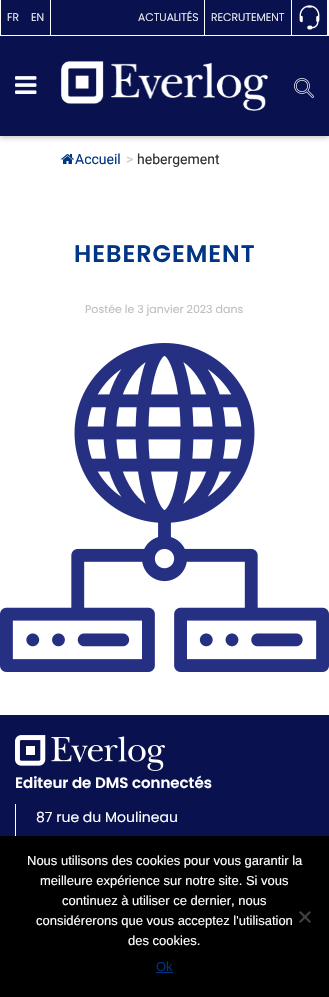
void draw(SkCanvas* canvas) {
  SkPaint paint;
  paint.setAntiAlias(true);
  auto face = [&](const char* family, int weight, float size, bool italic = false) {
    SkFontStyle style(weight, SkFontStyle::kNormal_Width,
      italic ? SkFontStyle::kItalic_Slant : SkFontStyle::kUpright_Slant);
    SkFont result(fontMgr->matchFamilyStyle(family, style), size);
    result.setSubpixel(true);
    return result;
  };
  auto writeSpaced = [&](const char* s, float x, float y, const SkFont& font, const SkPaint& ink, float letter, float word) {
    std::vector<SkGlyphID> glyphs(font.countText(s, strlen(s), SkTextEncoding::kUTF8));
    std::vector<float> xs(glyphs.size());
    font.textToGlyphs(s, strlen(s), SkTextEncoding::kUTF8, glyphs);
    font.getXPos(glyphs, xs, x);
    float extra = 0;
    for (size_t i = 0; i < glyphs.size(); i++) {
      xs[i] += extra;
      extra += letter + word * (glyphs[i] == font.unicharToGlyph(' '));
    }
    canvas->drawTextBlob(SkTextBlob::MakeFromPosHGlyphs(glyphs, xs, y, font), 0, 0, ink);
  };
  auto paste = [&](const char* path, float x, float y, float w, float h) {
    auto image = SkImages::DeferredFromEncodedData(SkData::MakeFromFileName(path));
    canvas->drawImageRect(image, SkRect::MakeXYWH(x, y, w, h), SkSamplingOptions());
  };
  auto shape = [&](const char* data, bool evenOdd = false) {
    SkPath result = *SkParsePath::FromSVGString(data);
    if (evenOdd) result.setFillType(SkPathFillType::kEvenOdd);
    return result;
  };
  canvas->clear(0xffffffff);
  paint.setColor(0x42303030);
  paint.setMaskFilter(SkMaskFilter::MakeBlur(kNormal_SkBlurStyle, 2.5f));
  canvas->drawRect(SkRect::MakeXYWH(0, 38, 329, 100), paint);
  paint.setMaskFilter(nullptr);
  {
    const struct { float x, y, w, h; SkColor color; } items[] = {
      {1, 0, 326, 35, 0xff09114e},
      {0, 35, 329, 1, 0xffffffff},
      {50, 0, 1, 35, 0xffffffff},
      {204, 0, 1, 35, 0xffffffff},
      {291, 0, 1, 35, 0xffffffff},
    };
    for (auto [x, y, w, h, color] : items) {
      paint.setColor(color);
      canvas->drawRect(SkRect::MakeXYWH(x, y, w, h), paint);
    }
  }
  paste("img/1.png", 299, 5, 21, 25);
  canvas->drawRect(SkRect::MakeXYWH(327, 34, 1, 1), paint);
  paint.setColor(0xff09114f);
  canvas->drawRect(SkRect::MakeXYWH(0, 36, 329, 100), paint);
  paste("img/2.png", 15, 76, 22, 18);
  paste("img/3.png", 61, 61, 207, 50);
  paste("img/4.png", 294, 78, 20, 20);
  paste("img/5.png", 61, 154, 13, 10);
  paste("img/6.png", 0, 343, 329, 329);
  canvas->drawRect(SkRect::MakeXYWH(0, 715, 329, 121), paint);
  paste("img/7.png", 15, 735, 150, 36);
  paint.setColor(0xffffffff);
  canvas->drawRect(SkRect::MakeXYWH(15, 804, 1, 32), paint);
  paint.setColor(0xff000000);
  canvas->drawRect(SkRect::MakeXYWH(0, 836, 329, 161), paint);
  paint.setColor(0xff404040);
  canvas->drawPath(shape("M309.5 911L311 912.5L300.5 923L299 921.5Z"), paint);
  canvas->drawPath(shape("M299 912.5L300.5 911L311 921.5L309.5 923Z"), paint);
  paint.setColor(0xff013585);
  canvas->drawRect(SkRect::MakeXYWH(156, 972, 17, 1), paint);
  auto f0 = face("Poppins", 300, 11);
  paint.setColor(0xffffffff);
  {
    const struct { const char* s; float x, y; } items[] = {
      {"FR", 7, 21},
      {"EN", 31, 21},
      {"ACTUALITÉS", 138, 21},
      {"RECRUTEMENT", 211, 21},
    };
    for (auto [s, x, y] : items) {
      canvas->drawString(s, x, y, f0, paint);
    }
  }
  auto f1 = face("Roboto", 400, 14);
  paint.setColor(0xff013585);
  canvas->drawString("Accueil", 75, 164, f1, paint);
  paint.setColor(0xffcccccc);
  canvas->drawString(">", 126, 164, f1, paint);
  paint.setColor(0xff313131);
  canvas->drawString("hebergement", 137, 164, f1, paint);
  auto f2 = face("Poppins", 600, 24);
  paint.setColor(0xff013585);
  writeSpaced("HEBERGEMENT", 74, 262, f2, paint, 1, 0);
  auto f3 = face("Poppins", 400, 11);
  paint.setColor(0xffbebebe);
  canvas->drawString("Postée le 3 janvier 2023 dans", 85, 313, f3, paint);
  auto f4 = face("Poppins", 600, 15);
  paint.setColor(0xffffffff);
  canvas->drawString("Editeur de DMS connectés", 15, 788, f4, paint);
  auto f5 = face("Poppins", 400, 14);
  canvas->drawString("87 rue du Moulineau", 36, 822, f5, paint);
  auto f6 = face("Liberation Sans", 400, 13);
  {
    const struct { const char* s; float x, y; } items[] = {
      {"Nous utilisons des cookies pour vous garantir la", 27, 865},
      {"meilleure expérience sur notre site. Si vous", 40, 885},
      {"continuez à utiliser ce dernier, nous", 62, 905},
      {"considérerons que vous acceptez l'utilisation", 36, 925},
      {"des cookies.", 128, 945},
    };
    for (auto [s, x, y] : items) {
      canvas->drawString(s, x, y, f6, paint);
    }
  }
  paint.setColor(0xff013585);
  canvas->drawString("Ok", 156, 971, f6, paint);
}
